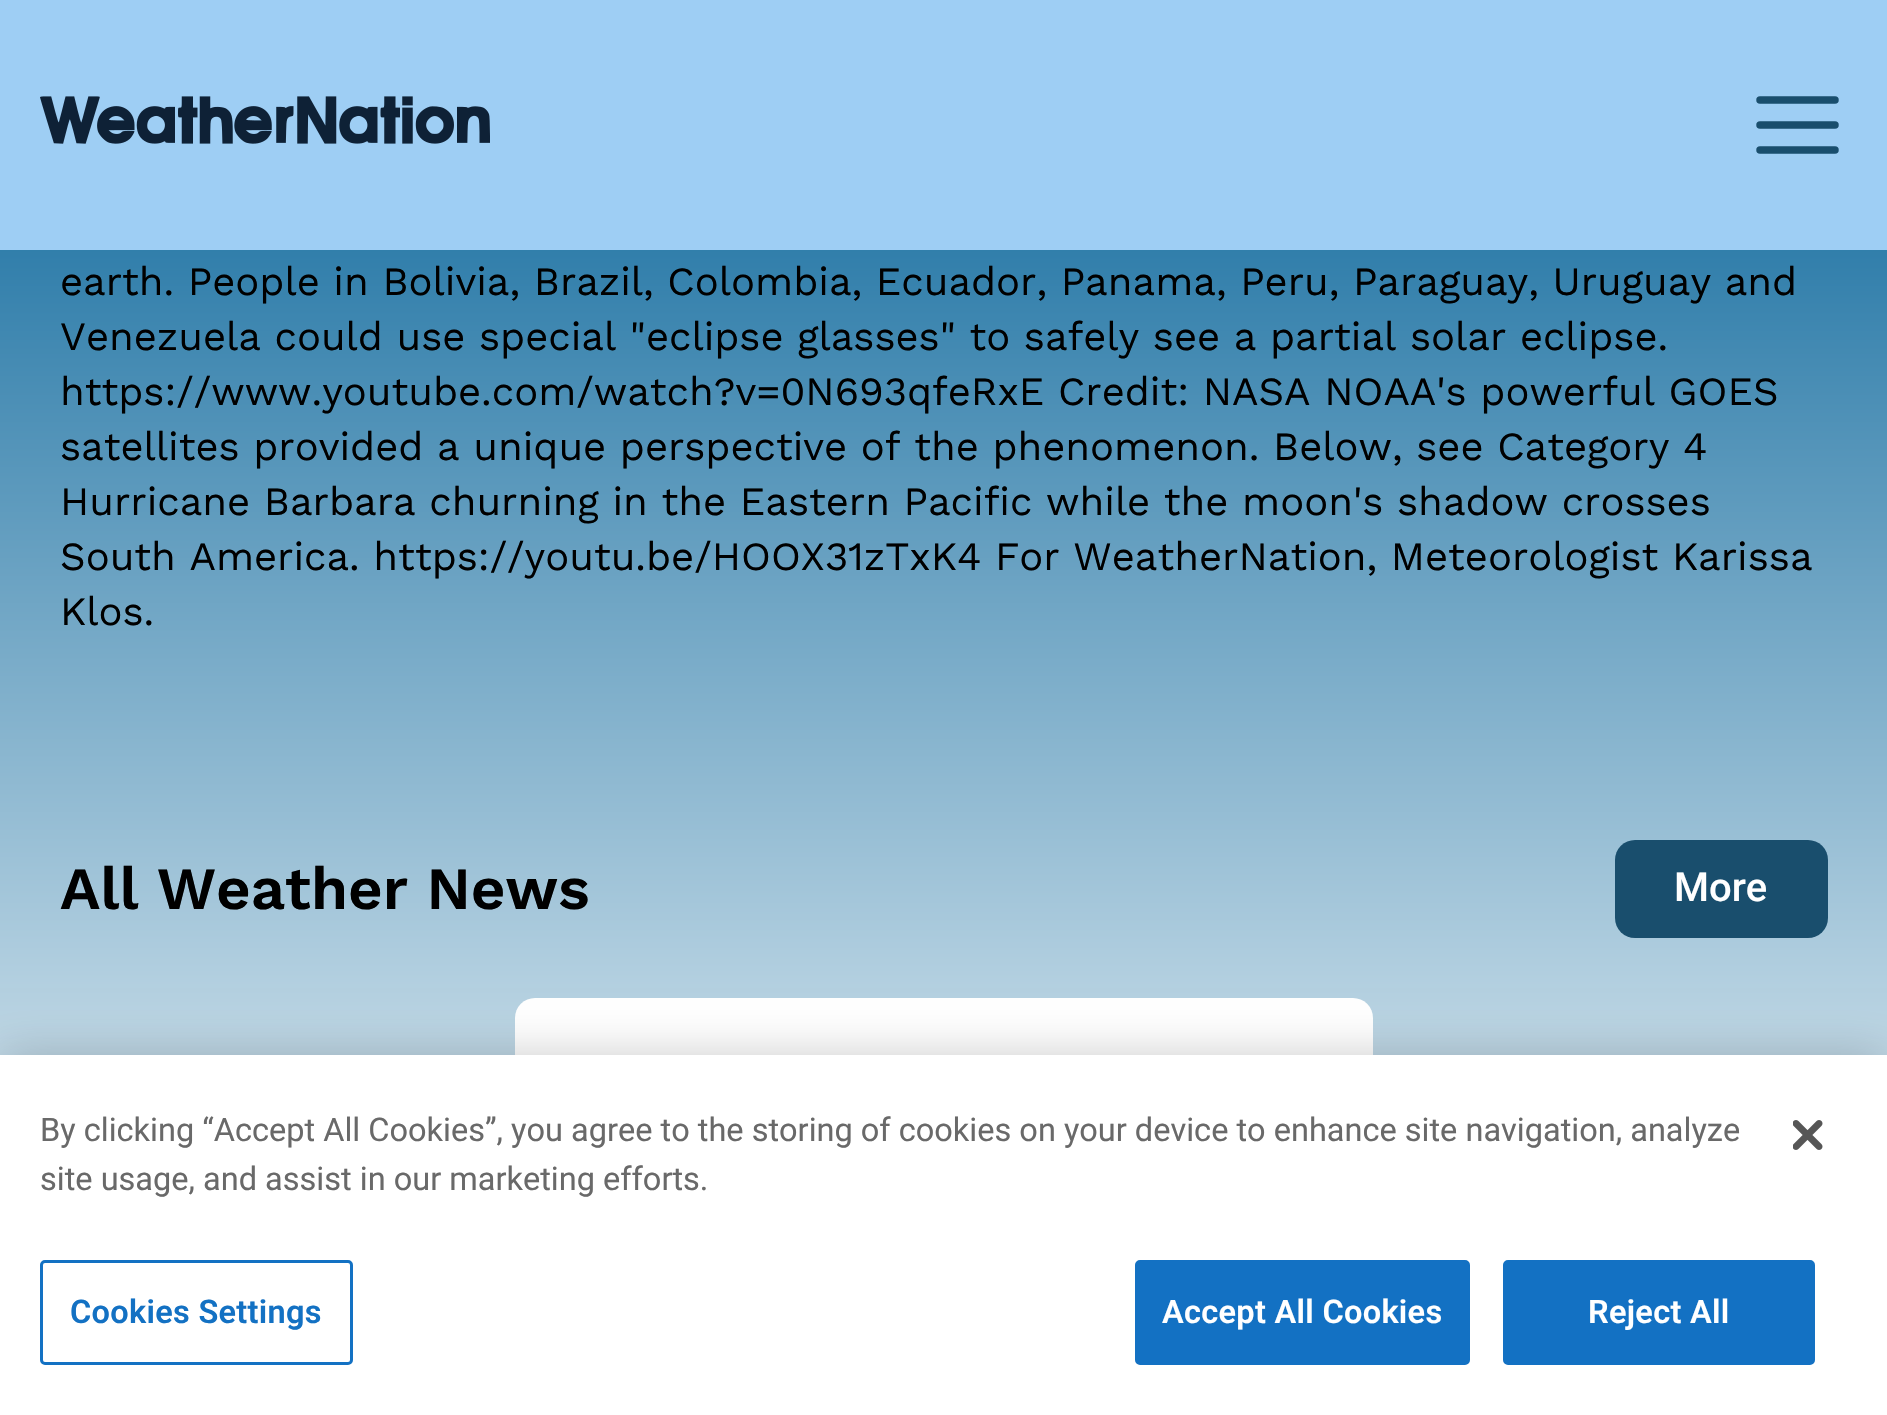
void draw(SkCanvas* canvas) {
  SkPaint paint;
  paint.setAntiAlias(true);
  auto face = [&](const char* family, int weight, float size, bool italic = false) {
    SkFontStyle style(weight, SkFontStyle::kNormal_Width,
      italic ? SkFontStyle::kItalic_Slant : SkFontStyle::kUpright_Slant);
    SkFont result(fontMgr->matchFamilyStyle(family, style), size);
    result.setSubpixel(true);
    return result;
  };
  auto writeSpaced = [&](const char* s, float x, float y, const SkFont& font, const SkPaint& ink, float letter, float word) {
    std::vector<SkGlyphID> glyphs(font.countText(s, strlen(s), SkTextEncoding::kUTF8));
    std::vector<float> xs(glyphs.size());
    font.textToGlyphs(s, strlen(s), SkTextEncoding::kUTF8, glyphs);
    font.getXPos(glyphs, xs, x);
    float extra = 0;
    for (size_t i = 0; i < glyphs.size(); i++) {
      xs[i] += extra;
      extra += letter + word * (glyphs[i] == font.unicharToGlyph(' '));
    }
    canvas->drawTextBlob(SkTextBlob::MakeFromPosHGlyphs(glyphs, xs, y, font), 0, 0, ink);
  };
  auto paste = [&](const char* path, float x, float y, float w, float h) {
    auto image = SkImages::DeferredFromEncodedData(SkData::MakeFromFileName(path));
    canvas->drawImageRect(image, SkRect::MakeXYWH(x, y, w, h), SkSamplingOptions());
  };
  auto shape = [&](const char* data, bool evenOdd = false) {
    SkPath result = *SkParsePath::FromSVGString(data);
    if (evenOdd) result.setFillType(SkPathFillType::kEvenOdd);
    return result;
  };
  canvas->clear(0xffffffff);
  {
    const SkColor colors[] = {0xff056399, 0xffffffff};
    const float stops[] = {0, 1};
    const SkPoint ends[] = {{944, 0}, {944, 1415}};
    paint.setShader(SkGradientShader::MakeLinear(ends, colors, stops, 2, SkTileMode::kClamp));
    paint.setAlpha(255);
  }
  canvas->drawRect(SkRect::MakeXYWH(0, 250, 1887, 805), paint);
  paint.setShader(nullptr);
  paint.setColor(0xff9ecef4);
  canvas->drawRect(SkRect::MakeXYWH(0, 0, 1887, 250), paint);
  paste("img/1.png", 40, 96, 450, 48);
  paint.setStroke(true);
  paint.setStrokeWidth(7.5f);
  paint.setStrokeCap(SkPaint::kRound_Cap);
  paint.setStrokeJoin(SkPaint::kRound_Join);
  paint.setColor(0xff194e6d);
  canvas->drawPath(shape("M1760 125H1835M1760 100H1835M1760 150H1835"), paint);
  paint.setStroke(false);
  canvas->drawRoundRect(SkRect::MakeXYWH(1615, 840, 213, 98), 20, 20, paint);
  paint.setColor(0xffffffff);
  canvas->drawRoundRect(SkRect::MakeXYWH(515, 998, 858, 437), 20, 20, paint);
  paint.setColor(0x33000000);
  paint.setMaskFilter(SkMaskFilter::MakeBlur(kNormal_SkBlurStyle, 22.5f));
  canvas->drawRect(SkRect::MakeXYWH(0, 1055, 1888, 360), paint);
  paint.setMaskFilter(nullptr);
  paint.setColor(0xffffffff);
  canvas->drawRect(SkRect::MakeXYWH(0, 1055, 1887, 360), paint);
  paint.setStroke(true);
  paint.setStrokeWidth(3);
  paint.setStrokeCap(SkPaint::kButt_Cap);
  paint.setStrokeJoin(SkPaint::kMiter_Join);
  paint.setColor(0xff1371c3);
  canvas->drawRoundRect(SkRect::MakeXYWH(41.5f, 1261.5f, 310, 102), 3.5f, 3.5f, paint);
  paint.setStroke(false);
  canvas->drawRoundRect(SkRect::MakeXYWH(1136.5f, 1261.5f, 332, 102), 3.5f, 3.5f, paint);
  paint.setStroke(true);
  canvas->drawRoundRect(SkRect::MakeXYWH(1136.5f, 1261.5f, 332, 102), 3.5f, 3.5f, paint);
  paint.setStroke(false);
  canvas->drawRoundRect(SkRect::MakeXYWH(1504.5f, 1261.5f, 309, 102), 3.5f, 3.5f, paint);
  paint.setStroke(true);
  canvas->drawRoundRect(SkRect::MakeXYWH(1504.5f, 1261.5f, 309, 102), 3.5f, 3.5f, paint);
  paste("img/2.png", 1793, 1120, 30, 30);
  auto f0 = face("Work Sans", 400, 40);
  paint.setStroke(false);
  paint.setColor(0xff000000);
  {
    const struct { const char* s; float x, y; } items[] = {
      {"earth. People in Bolivia, Brazil, Colombia, Ecuador, Panama, Peru, Paraguay, Uruguay and", 60, 295},
      {"Venezuela could use special \"eclipse glasses\" to safely see a partial solar eclipse.", 60, 350},
      {"https://www.youtube.com/watch?v=0N693qfeRxE Credit: NASA NOAA's powerful GOES", 60, 405},
      {"satellites provided a unique perspective of the phenomenon. Below, see Category 4", 60, 460},
      {"Hurricane Barbara churning in the Eastern Pacific while the moon's shadow crosses", 60, 515},
      {"South America. https://youtu.be/HOOX31zTxK4 For WeatherNation, Meteorologist Karissa", 60, 570},
      {"Klos.", 60, 625},
    };
    for (auto [s, x, y] : items) {
      canvas->drawString(s, x, y, f0, paint);
    }
  }
  auto f1 = face("Work Sans", 600, 60);
  canvas->drawString("All Weather News", 60, 909, f1, paint);
  auto f2 = face("Roboto", 500, 40);
  paint.setColor(0xffffffff);
  canvas->drawString("More", 1674, 901, f2, paint);
  auto f3 = face("Roboto", 400, 32.52f);
  paint.setColor(0xff696969);
  canvas->drawString("By clicking “Accept All Cookies”, you agree to the storing of cookies on your device to enhance site navigation, analyze", 40, 1141, f3, paint);
  canvas->drawString("site usage, and assist in our marketing efforts.", 40, 1190, f3, paint);
  auto f4 = face("Roboto", 600, 32.52f);
  paint.setColor(0xff1371c3);
  writeSpaced("Cookies Settings", 70, 1323, f4, paint, 0.3f, 0);
  paint.setColor(0xffffffff);
  writeSpaced("Accept All Cookies", 1162, 1323, f4, paint, 0.3f, 0);
  writeSpaced("Reject All", 1588, 1323, f4, paint, 0.3f, 0);
}
